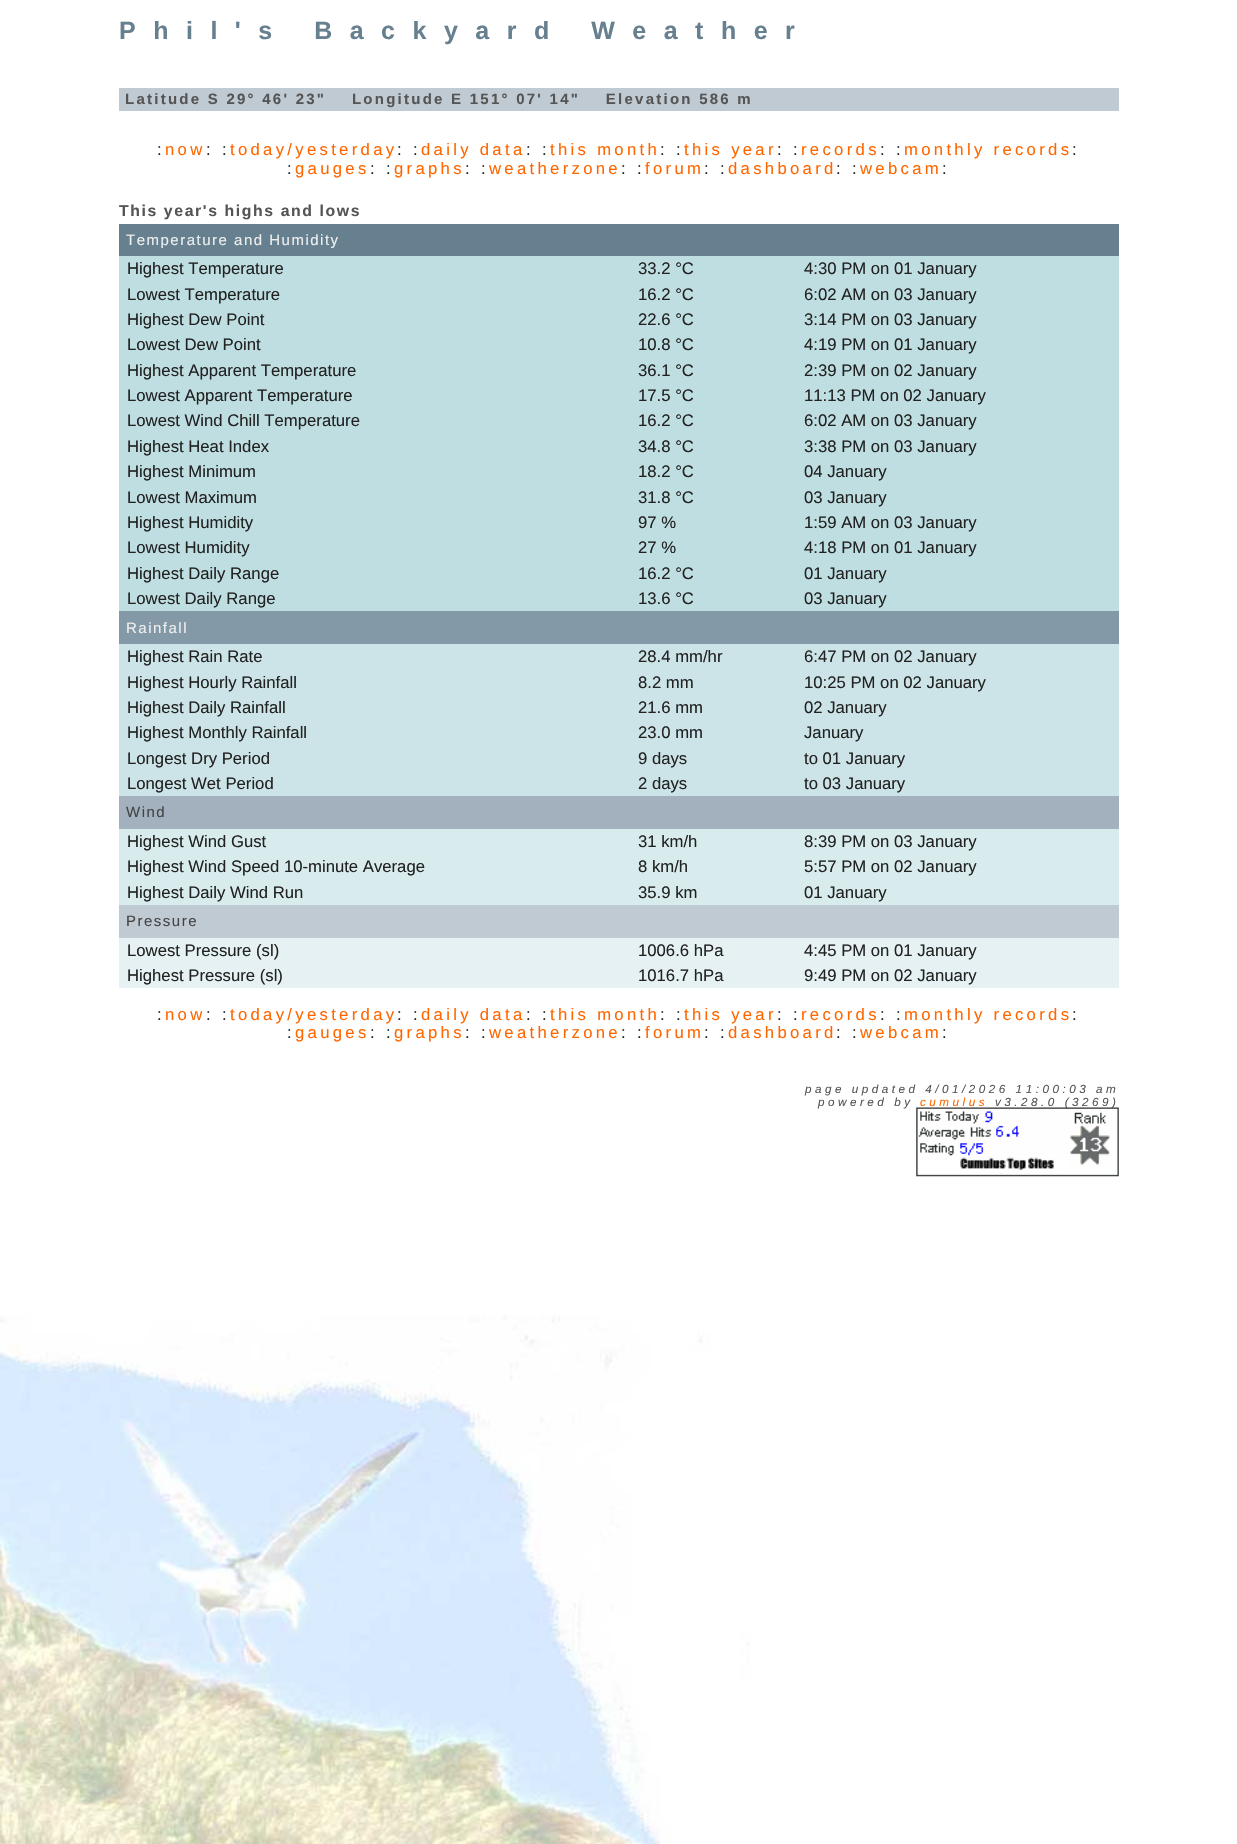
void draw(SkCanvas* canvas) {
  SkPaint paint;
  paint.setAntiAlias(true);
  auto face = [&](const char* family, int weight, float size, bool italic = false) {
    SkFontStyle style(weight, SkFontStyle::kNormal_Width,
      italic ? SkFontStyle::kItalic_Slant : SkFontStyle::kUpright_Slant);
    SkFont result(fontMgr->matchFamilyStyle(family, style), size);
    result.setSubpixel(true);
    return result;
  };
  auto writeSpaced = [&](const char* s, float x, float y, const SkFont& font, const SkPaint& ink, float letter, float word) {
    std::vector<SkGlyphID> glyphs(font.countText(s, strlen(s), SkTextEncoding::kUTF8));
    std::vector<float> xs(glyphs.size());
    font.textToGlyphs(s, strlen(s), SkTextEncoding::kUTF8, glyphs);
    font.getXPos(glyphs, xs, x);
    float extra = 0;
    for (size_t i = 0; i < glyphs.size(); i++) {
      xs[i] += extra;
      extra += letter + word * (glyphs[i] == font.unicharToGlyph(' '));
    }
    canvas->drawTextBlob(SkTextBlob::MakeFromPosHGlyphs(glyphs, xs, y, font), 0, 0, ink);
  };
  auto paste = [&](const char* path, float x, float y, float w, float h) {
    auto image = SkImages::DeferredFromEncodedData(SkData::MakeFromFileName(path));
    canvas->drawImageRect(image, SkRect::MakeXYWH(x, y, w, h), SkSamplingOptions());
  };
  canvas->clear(0xffffffff);
  paste("img/1.png", 0, 1315, 750, 529);
  {
    const struct { float x, y, w, h; SkColor color; } items[] = {
      {119, 88, 1000, 23, 0xffc0cad3},
      {119, 224, 1000, 32, 0xff678090},
      {119, 256, 1000, 355, 0xffbfdee1},
      {119, 611, 1000, 33, 0xff8499a7},
      {119, 644, 1000, 152, 0xffcce4e7},
      {119, 796, 1000, 33, 0xffa2b1bd},
      {119, 829, 1000, 76, 0xffd8ebed},
      {119, 905, 1000, 33, 0xffc0cad3},
      {119, 938, 1000, 50, 0xffe5f1f2},
    };
    for (auto [x, y, w, h, color] : items) {
      paint.setColor(color);
      canvas->drawRect(SkRect::MakeXYWH(x, y, w, h), paint);
    }
  }
  auto f0 = face("Liberation Sans", 700, 25);
  paint.setColor(0xff678090);
  writeSpaced("Phil's Backyard Weather", 119, 39, f0, paint, 17.5f, 0);
  auto f1 = face("Liberation Sans", 700, 15);
  paint.setColor(0xff555555);
  writeSpaced("Latitude S 29° 46' 23\"    Longitude E 151° 07' 14\"    Elevation 586 m", 125, 104, f1, paint, 2.25f, 0);
  auto f2 = face("Liberation Sans", 400, 16.7f);
  paint.setColor(0xff222222);
  writeSpaced(":", 157, 155, f2, paint, 3.3f, 0);
  paint.setColor(0xffff6600);
  writeSpaced("now", 165, 155, f2, paint, 3.3f, 0);
  paint.setColor(0xff222222);
  writeSpaced(": :", 206, 155, f2, paint, 3.3f, 0);
  paint.setColor(0xffff6600);
  writeSpaced("today/yesterday", 230, 155, f2, paint, 3.3f, 0);
  paint.setColor(0xff222222);
  writeSpaced(": :", 397, 155, f2, paint, 3.3f, 0);
  paint.setColor(0xffff6600);
  writeSpaced("daily data", 421, 155, f2, paint, 3.3f, 0);
  paint.setColor(0xff222222);
  writeSpaced(": :", 526, 155, f2, paint, 3.3f, 0);
  paint.setColor(0xffff6600);
  writeSpaced("this month", 550, 155, f2, paint, 3.3f, 0);
  paint.setColor(0xff222222);
  writeSpaced(": :", 660, 155, f2, paint, 3.3f, 0);
  paint.setColor(0xffff6600);
  writeSpaced("this year", 684, 155, f2, paint, 3.3f, 0);
  paint.setColor(0xff222222);
  writeSpaced(": :", 777, 155, f2, paint, 3.3f, 0);
  paint.setColor(0xffff6600);
  writeSpaced("records", 801, 155, f2, paint, 3.3f, 0);
  paint.setColor(0xff222222);
  writeSpaced(": :", 880, 155, f2, paint, 3.3f, 0);
  paint.setColor(0xffff6600);
  writeSpaced("monthly records", 904, 155, f2, paint, 3.3f, 0);
  paint.setColor(0xff222222);
  writeSpaced(":", 1072, 155, f2, paint, 3.3f, 0);
  writeSpaced(":", 287, 174, f2, paint, 3.3f, 0);
  paint.setColor(0xffff6600);
  writeSpaced("gauges", 295, 174, f2, paint, 3.3f, 0);
  paint.setColor(0xff222222);
  writeSpaced(": :", 370, 174, f2, paint, 3.3f, 0);
  paint.setColor(0xffff6600);
  writeSpaced("graphs", 394, 174, f2, paint, 3.3f, 0);
  paint.setColor(0xff222222);
  writeSpaced(": :", 465, 174, f2, paint, 3.3f, 0);
  paint.setColor(0xffff6600);
  writeSpaced("weatherzone", 489, 174, f2, paint, 3.3f, 0);
  paint.setColor(0xff222222);
  writeSpaced(": :", 621, 174, f2, paint, 3.3f, 0);
  paint.setColor(0xffff6600);
  writeSpaced("forum", 645, 174, f2, paint, 3.3f, 0);
  paint.setColor(0xff222222);
  writeSpaced(": :", 704, 174, f2, paint, 3.3f, 0);
  paint.setColor(0xffff6600);
  writeSpaced("dashboard", 728, 174, f2, paint, 3.3f, 0);
  paint.setColor(0xff222222);
  writeSpaced(": :", 836, 174, f2, paint, 3.3f, 0);
  paint.setColor(0xffff6600);
  writeSpaced("webcam", 860, 174, f2, paint, 3.3f, 0);
  paint.setColor(0xff222222);
  writeSpaced(":", 942, 174, f2, paint, 3.3f, 0);
  auto f3 = face("Liberation Sans", 700, 15.8f);
  paint.setColor(0xff555555);
  writeSpaced("This year's highs and lows", 119, 216, f3, paint, 1.6f, 0);
  auto f4 = face("Liberation Sans", 400, 15);
  paint.setColor(0xffeeeeee);
  writeSpaced("Temperature and Humidity", 126, 245, f4, paint, 1.5f, 0);
  paint.setColor(0xff222222);
  {
    const struct { const char* s; float x, y; } items[] = {
      {"Highest Temperature", 127, 274},
      {"33.2 °C", 638, 274},
      {"4:30 PM on 01 January", 804, 274},
      {"Lowest Temperature", 127, 300},
      {"16.2 °C", 638, 300},
      {"6:02 AM on 03 January", 804, 300},
      {"Highest Dew Point", 127, 325},
      {"22.6 °C", 638, 325},
      {"3:14 PM on 03 January", 804, 325},
      {"Lowest Dew Point", 127, 350},
      {"10.8 °C", 638, 350},
      {"4:19 PM on 01 January", 804, 350},
      {"Highest Apparent Temperature", 127, 376},
      {"36.1 °C", 638, 376},
      {"2:39 PM on 02 January", 804, 376},
      {"Lowest Apparent Temperature", 127, 401},
      {"17.5 °C", 638, 401},
      {"11:13 PM on 02 January", 804, 401},
      {"Lowest Wind Chill Temperature", 127, 426},
      {"16.2 °C", 638, 426},
      {"6:02 AM on 03 January", 804, 426},
      {"Highest Heat Index", 127, 452},
      {"34.8 °C", 638, 452},
      {"3:38 PM on 03 January", 804, 452},
      {"Highest Minimum", 127, 477},
      {"18.2 °C", 638, 477},
      {"04 January", 804, 477},
      {"Lowest Maximum", 127, 503},
      {"31.8 °C", 638, 503},
      {"03 January", 804, 503},
      {"Highest Humidity", 127, 528},
      {"97 %", 638, 528},
      {"1:59 AM on 03 January", 804, 528},
      {"Lowest Humidity", 127, 553},
      {"27 %", 638, 553},
      {"4:18 PM on 01 January", 804, 553},
      {"Highest Daily Range", 127, 579},
      {"16.2 °C", 638, 579},
      {"01 January", 804, 579},
      {"Lowest Daily Range", 127, 604},
      {"13.6 °C", 638, 604},
      {"03 January", 804, 604},
    };
    for (auto [s, x, y] : items) {
      canvas->drawString(s, x, y, f2, paint);
    }
  }
  paint.setColor(0xffeeeeee);
  writeSpaced("Rainfall", 126, 633, f4, paint, 1.5f, 0);
  paint.setColor(0xff222222);
  {
    const struct { const char* s; float x, y; } items[] = {
      {"Highest Rain Rate", 127, 662},
      {"28.4 mm/hr", 638, 662},
      {"6:47 PM on 02 January", 804, 662},
      {"Highest Hourly Rainfall", 127, 688},
      {"8.2 mm", 638, 688},
      {"10:25 PM on 02 January", 804, 688},
      {"Highest Daily Rainfall", 127, 713},
      {"21.6 mm", 638, 713},
      {"02 January", 804, 713},
      {"Highest Monthly Rainfall", 127, 738},
      {"23.0 mm", 638, 738},
      {"January", 804, 738},
      {"Longest Dry Period", 127, 764},
      {"9 days", 638, 764},
      {"to 01 January", 804, 764},
      {"Longest Wet Period", 127, 789},
      {"2 days", 638, 789},
      {"to 03 January", 804, 789},
    };
    for (auto [s, x, y] : items) {
      canvas->drawString(s, x, y, f2, paint);
    }
  }
  paint.setColor(0xff444444);
  writeSpaced("Wind", 126, 817, f4, paint, 1.5f, 0);
  paint.setColor(0xff222222);
  {
    const struct { const char* s; float x, y; } items[] = {
      {"Highest Wind Gust", 127, 847},
      {"31 km/h", 638, 847},
      {"8:39 PM on 03 January", 804, 847},
      {"Highest Wind Speed 10-minute Average", 127, 872},
      {"8 km/h", 638, 872},
      {"5:57 PM on 02 January", 804, 872},
      {"Highest Daily Wind Run", 127, 898},
      {"35.9 km", 638, 898},
      {"01 January", 804, 898},
    };
    for (auto [s, x, y] : items) {
      canvas->drawString(s, x, y, f2, paint);
    }
  }
  paint.setColor(0xff444444);
  writeSpaced("Pressure", 126, 926, f4, paint, 1.5f, 0);
  paint.setColor(0xff222222);
  {
    const struct { const char* s; float x, y; } items[] = {
      {"Lowest Pressure (sl)", 127, 956},
      {"1006.6 hPa", 638, 956},
      {"4:45 PM on 01 January", 804, 956},
      {"Highest Pressure (sl)", 127, 981},
      {"1016.7 hPa", 638, 981},
      {"9:49 PM on 02 January", 804, 981},
    };
    for (auto [s, x, y] : items) {
      canvas->drawString(s, x, y, f2, paint);
    }
  }
  writeSpaced(":", 157, 1020, f2, paint, 3.3f, 0);
  paint.setColor(0xffff6600);
  writeSpaced("now", 165, 1020, f2, paint, 3.3f, 0);
  paint.setColor(0xff222222);
  writeSpaced(": :", 206, 1020, f2, paint, 3.3f, 0);
  paint.setColor(0xffff6600);
  writeSpaced("today/yesterday", 230, 1020, f2, paint, 3.3f, 0);
  paint.setColor(0xff222222);
  writeSpaced(": :", 397, 1020, f2, paint, 3.3f, 0);
  paint.setColor(0xffff6600);
  writeSpaced("daily data", 421, 1020, f2, paint, 3.3f, 0);
  paint.setColor(0xff222222);
  writeSpaced(": :", 526, 1020, f2, paint, 3.3f, 0);
  paint.setColor(0xffff6600);
  writeSpaced("this month", 550, 1020, f2, paint, 3.3f, 0);
  paint.setColor(0xff222222);
  writeSpaced(": :", 660, 1020, f2, paint, 3.3f, 0);
  paint.setColor(0xffff6600);
  writeSpaced("this year", 684, 1020, f2, paint, 3.3f, 0);
  paint.setColor(0xff222222);
  writeSpaced(": :", 777, 1020, f2, paint, 3.3f, 0);
  paint.setColor(0xffff6600);
  writeSpaced("records", 801, 1020, f2, paint, 3.3f, 0);
  paint.setColor(0xff222222);
  writeSpaced(": :", 880, 1020, f2, paint, 3.3f, 0);
  paint.setColor(0xffff6600);
  writeSpaced("monthly records", 904, 1020, f2, paint, 3.3f, 0);
  paint.setColor(0xff222222);
  writeSpaced(":", 1072, 1020, f2, paint, 3.3f, 0);
  writeSpaced(":", 287, 1038, f2, paint, 3.3f, 0);
  paint.setColor(0xffff6600);
  writeSpaced("gauges", 295, 1038, f2, paint, 3.3f, 0);
  paint.setColor(0xff222222);
  writeSpaced(": :", 370, 1038, f2, paint, 3.3f, 0);
  paint.setColor(0xffff6600);
  writeSpaced("graphs", 394, 1038, f2, paint, 3.3f, 0);
  paint.setColor(0xff222222);
  writeSpaced(": :", 465, 1038, f2, paint, 3.3f, 0);
  paint.setColor(0xffff6600);
  writeSpaced("weatherzone", 489, 1038, f2, paint, 3.3f, 0);
  paint.setColor(0xff222222);
  writeSpaced(": :", 621, 1038, f2, paint, 3.3f, 0);
  paint.setColor(0xffff6600);
  writeSpaced("forum", 645, 1038, f2, paint, 3.3f, 0);
  paint.setColor(0xff222222);
  writeSpaced(": :", 704, 1038, f2, paint, 3.3f, 0);
  paint.setColor(0xffff6600);
  writeSpaced("dashboard", 728, 1038, f2, paint, 3.3f, 0);
  paint.setColor(0xff222222);
  writeSpaced(": :", 836, 1038, f2, paint, 3.3f, 0);
  paint.setColor(0xffff6600);
  writeSpaced("webcam", 860, 1038, f2, paint, 3.3f, 0);
  paint.setColor(0xff222222);
  writeSpaced(":", 942, 1038, f2, paint, 3.3f, 0);
  auto f5 = face("Liberation Sans", 400, 11.7f, true);
  paint.setColor(0xff555555);
  writeSpaced("page updated 4/01/2026 11:00:03 am", 805, 1093, f5, paint, 3.5f, 0);
  writeSpaced("powered by", 818, 1106, f5, paint, 3.5f, 0);
  paint.setColor(0xffff6600);
  writeSpaced("cumulus", 920, 1106, f5, paint, 3.5f, 0);
  paint.setColor(0xff555555);
  writeSpaced("v3.28.0 (3269)", 995, 1106, f5, paint, 3.5f, 0);
  paste("img/2.png", 916, 1107, 203, 70);
}
